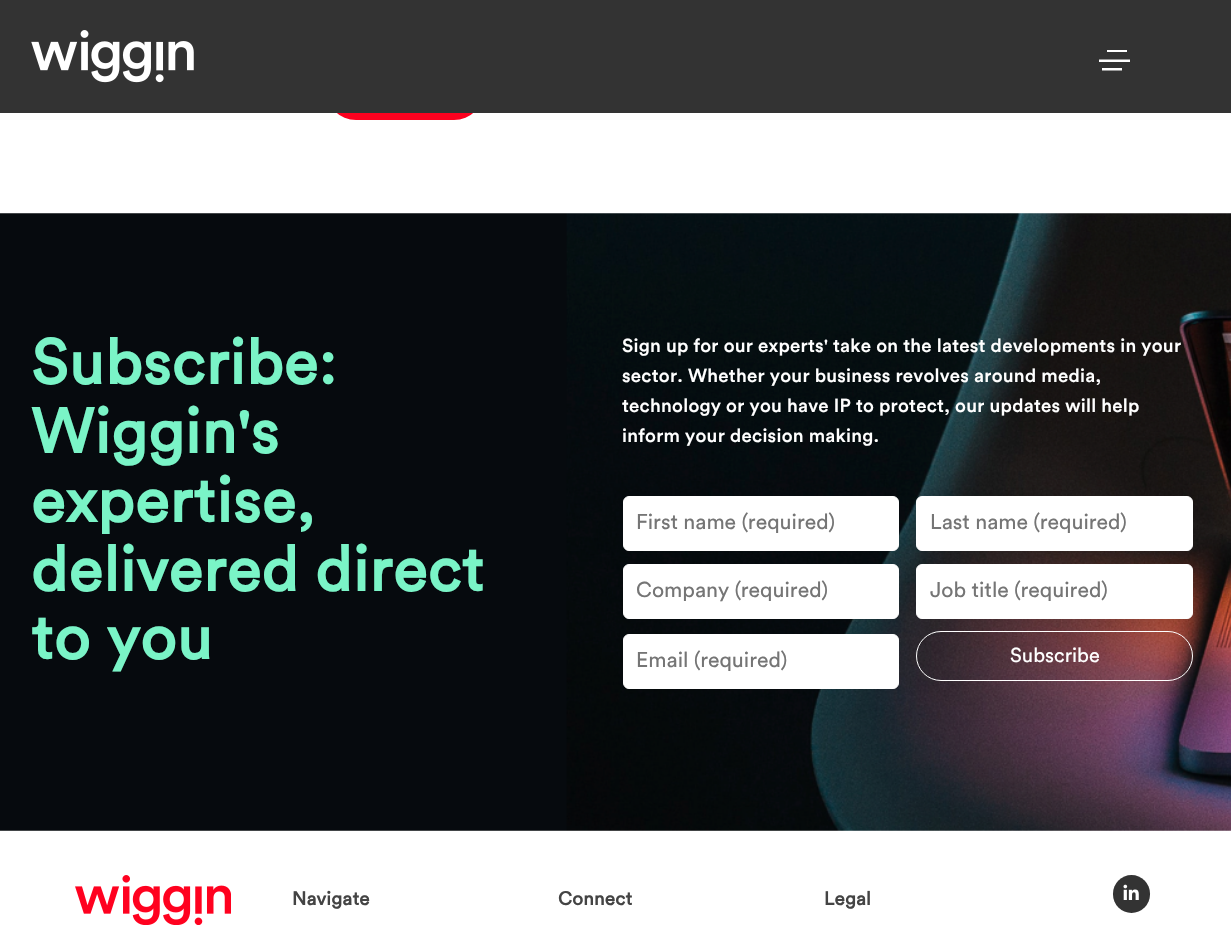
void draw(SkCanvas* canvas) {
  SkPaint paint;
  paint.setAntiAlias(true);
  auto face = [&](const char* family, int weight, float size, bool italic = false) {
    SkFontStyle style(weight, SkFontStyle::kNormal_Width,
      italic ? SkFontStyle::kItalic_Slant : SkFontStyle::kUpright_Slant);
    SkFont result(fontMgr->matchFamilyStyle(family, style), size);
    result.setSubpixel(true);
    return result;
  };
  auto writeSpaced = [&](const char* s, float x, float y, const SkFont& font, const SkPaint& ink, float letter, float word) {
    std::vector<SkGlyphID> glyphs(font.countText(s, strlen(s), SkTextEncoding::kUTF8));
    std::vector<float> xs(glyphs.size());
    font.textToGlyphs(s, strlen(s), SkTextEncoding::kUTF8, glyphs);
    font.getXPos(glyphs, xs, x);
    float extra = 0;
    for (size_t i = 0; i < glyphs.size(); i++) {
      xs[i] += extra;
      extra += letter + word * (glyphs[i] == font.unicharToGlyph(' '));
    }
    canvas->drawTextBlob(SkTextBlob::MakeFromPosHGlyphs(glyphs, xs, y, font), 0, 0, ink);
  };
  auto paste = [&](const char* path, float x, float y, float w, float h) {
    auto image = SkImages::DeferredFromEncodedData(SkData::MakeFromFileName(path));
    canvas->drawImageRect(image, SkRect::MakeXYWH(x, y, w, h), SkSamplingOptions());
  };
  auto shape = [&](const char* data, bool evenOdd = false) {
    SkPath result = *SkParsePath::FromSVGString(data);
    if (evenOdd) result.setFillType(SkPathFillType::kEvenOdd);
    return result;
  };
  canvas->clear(0xffffffff);
  paint.setColor(0xffff011f);
  canvas->drawRoundRect(SkRect::MakeXYWH(326, 60, 158, 60), 30, 30, paint);
  paint.setColor(0xff333333);
  canvas->drawRect(SkRect::MakeXYWH(0, 0, 1231, 113), paint);
  paste("img/1.png", 31, 30, 163, 53);
  canvas->save();
  canvas->clipRect(SkRect::MakeXYWH(1099, 50, 31, 41));
  paint.setColor(0xffffffff);
  canvas->drawPath(shape("M1107 49.5H1127V52H1107ZM1102 68H1122V70.5H1102ZM1098 59.5H1130.5V62H1098Z"), paint);
  canvas->restore();
  paste("img/2.png", 0, 213, 1231, 618);
  canvas->drawRoundRect(SkRect::MakeXYWH(623.5f, 496.5f, 275, 54), 5.5f, 5.5f, paint);
  paint.setStroke(true);
  paint.setStrokeWidth(1);
  canvas->drawRoundRect(SkRect::MakeXYWH(623.5f, 496.5f, 275, 54), 5.5f, 5.5f, paint);
  paint.setStroke(false);
  canvas->drawRoundRect(SkRect::MakeXYWH(916.5f, 496.5f, 276, 54), 5.5f, 5.5f, paint);
  paint.setStroke(true);
  canvas->drawRoundRect(SkRect::MakeXYWH(916.5f, 496.5f, 276, 54), 5.5f, 5.5f, paint);
  paint.setStroke(false);
  canvas->drawRoundRect(SkRect::MakeXYWH(623.5f, 564.5f, 275, 54), 5.5f, 5.5f, paint);
  paint.setStroke(true);
  canvas->drawRoundRect(SkRect::MakeXYWH(623.5f, 564.5f, 275, 54), 5.5f, 5.5f, paint);
  paint.setStroke(false);
  canvas->drawRoundRect(SkRect::MakeXYWH(916.5f, 564.5f, 276, 54), 5.5f, 5.5f, paint);
  paint.setStroke(true);
  canvas->drawRoundRect(SkRect::MakeXYWH(916.5f, 564.5f, 276, 54), 5.5f, 5.5f, paint);
  paint.setStroke(false);
  canvas->drawRoundRect(SkRect::MakeXYWH(623.5f, 634.5f, 275, 54), 5.5f, 5.5f, paint);
  paint.setStroke(true);
  canvas->drawRoundRect(SkRect::MakeXYWH(623.5f, 634.5f, 275, 54), 5.5f, 5.5f, paint);
  canvas->drawRoundRect(SkRect::MakeXYWH(916.5f, 631.5f, 276, 49), 24.5f, 24.5f, paint);
  paste("img/3.png", 75, 875, 156, 50);
  paint.setStroke(false);
  paint.setColor(0xff333333);
  canvas->drawRoundRect(SkRect::MakeXYWH(1113, 875, 37, 38), 18.5f, 18.5f, paint);
  paste("img/4.png", 1123, 884, 16, 16);
  auto f0 = face("Circular", 700, 62.5f);
  paint.setColor(0xff7af4c7);
  {
    const struct { const char* s; float x, y; } items[] = {
      {"Subscribe:", 31, 384},
      {"Wiggin's", 31, 453},
      {"expertise,", 31, 522},
      {"delivered direct", 31, 591},
      {"to you", 31, 659},
    };
    for (auto [s, x, y] : items) {
      writeSpaced(s, x, y, f0, paint, 0.75f, 0);
    }
  }
  auto f1 = face("Circular", 500, 18.75f);
  paint.setColor(0xffffffff);
  {
    const struct { const char* s; float x, y; } items[] = {
      {"Sign up for our experts' take on the latest developments in your", 622, 352},
      {"sector. Whether your business revolves around media,", 622, 382},
      {"technology or you have IP to protect, our updates will help", 622, 412},
      {"inform your decision making.", 622, 442},
    };
    for (auto [s, x, y] : items) {
      writeSpaced(s, x, y, f1, paint, 0.25f, 0);
    }
  }
  auto f2 = face("Circular", 400, 21.25f);
  paint.setColor(0xff757575);
  {
    const struct { const char* s; float x, y; } items[] = {
      {"First name (required)", 636, 529},
      {"Last name (required)", 930, 529},
      {"Company (required)", 636, 597},
      {"Job title (required)", 930, 597},
      {"Email (required)", 636, 667},
    };
    for (auto [s, x, y] : items) {
      canvas->drawString(s, x, y, f2, paint);
    }
  }
  auto f3 = face("Circular", 400, 20);
  paint.setColor(0xffffffff);
  canvas->drawString("Subscribe", 1010, 662, f3, paint);
  auto f4 = face("Circular", 700, 18.75f);
  paint.setColor(0xff444444);
  {
    const struct { const char* s; float x, y; } items[] = {
      {"Navigate", 292, 905},
      {"Connect", 558, 905},
      {"Legal", 824, 905},
    };
    for (auto [s, x, y] : items) {
      writeSpaced(s, x, y, f4, paint, 0.25f, 0);
    }
  }
}
